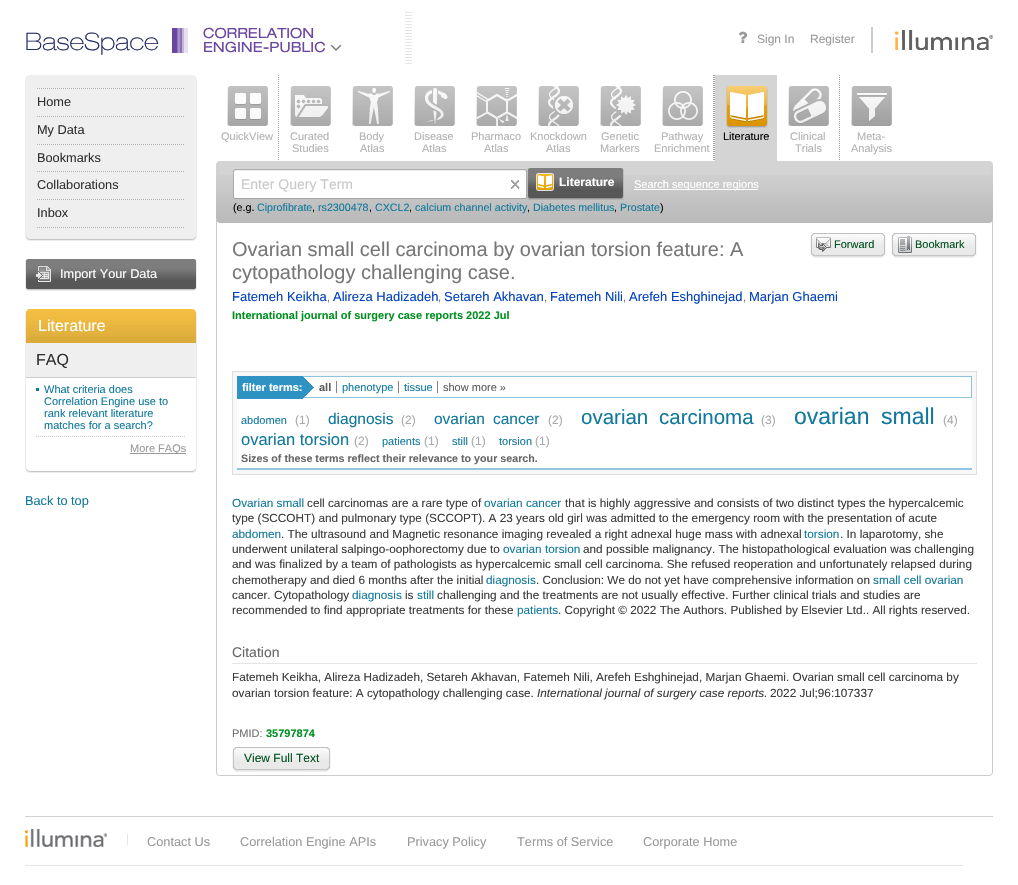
void draw(SkCanvas* canvas) {
  SkPaint paint;
  paint.setAntiAlias(true);
  auto face = [&](const char* family, int weight, float size, bool italic = false) {
    SkFontStyle style(weight, SkFontStyle::kNormal_Width,
      italic ? SkFontStyle::kItalic_Slant : SkFontStyle::kUpright_Slant);
    SkFont result(fontMgr->matchFamilyStyle(family, style), size);
    result.setSubpixel(true);
    return result;
  };
  auto paste = [&](const char* path, float x, float y, float w, float h) {
    auto image = SkImages::DeferredFromEncodedData(SkData::MakeFromFileName(path));
    canvas->drawImageRect(image, SkRect::MakeXYWH(x, y, w, h), SkSamplingOptions());
  };
  auto shape = [&](const char* data, bool evenOdd = false) {
    SkPath result = *SkParsePath::FromSVGString(data);
    if (evenOdd) result.setFillType(SkPathFillType::kEvenOdd);
    return result;
  };
  canvas->clear(0xffffffff);
  paste("img/1.png", 405, 12, 7, 52);
  {
    const struct { float x, y, w, h; SkColor color; } items[] = {
      {172, 28, 5, 25, 0xff6b46a1},
      {177, 28, 1, 25, 0xff9074b9},
      {178, 28, 2, 25, 0xffa690c7},
      {180, 28, 2, 25, 0xff8c6fb6},
      {182, 28, 2, 25, 0xffc4b5d9},
      {184, 28, 4, 25, 0xffe6e0ef},
    };
    for (auto [x, y, w, h, color] : items) {
      paint.setColor(color);
      canvas->drawRect(SkRect::MakeXYWH(x, y, w, h), paint);
    }
  }
  paste("img/2.png", 330, 44, 12, 7);
  paste("img/3.png", 739, 31, 9, 12);
  paint.setColor(0xffcccccc);
  canvas->drawRect(SkRect::MakeXYWH(871, 27, 2, 26), paint);
  paste("img/4.png", 895, 30, 98, 20);
  paint.setColor(0xffefefef);
  canvas->drawRect(SkRect::MakeXYWH(25, 78, 172, 158), paint);
  paste("img/5.png", 25, 75, 172, 3);
  paint.setColor(0xffececec);
  canvas->drawRect(SkRect::MakeXYWH(196, 81, 1, 154), paint);
  canvas->drawRect(SkRect::MakeXYWH(25, 81, 1, 154), paint);
  paint.setStroke(true);
  paint.setStrokeWidth(1);
  paint.setColor(0xffb2b2b2);
  paint.setPathEffect(SkDashPathEffect::Make({{1, 1}}, 0));
  canvas->drawPath(shape("M37 88.5H185"), paint);
  paint.setPathEffect(nullptr);
  paint.setPathEffect(SkDashPathEffect::Make({{1, 1}}, 0));
  canvas->drawPath(shape("M37 116.5H185"), paint);
  paint.setPathEffect(nullptr);
  paint.setPathEffect(SkDashPathEffect::Make({{1, 1}}, 0));
  canvas->drawPath(shape("M37 144.5H185"), paint);
  paint.setPathEffect(nullptr);
  paint.setPathEffect(SkDashPathEffect::Make({{1, 1}}, 0));
  canvas->drawPath(shape("M37 171.5H185"), paint);
  paint.setPathEffect(nullptr);
  paint.setPathEffect(SkDashPathEffect::Make({{1, 1}}, 0));
  canvas->drawPath(shape("M37 199.5H185"), paint);
  paint.setPathEffect(nullptr);
  paint.setPathEffect(SkDashPathEffect::Make({{1, 1}}, 0));
  canvas->drawPath(shape("M37 227.5H185"), paint);
  paint.setPathEffect(nullptr);
  paste("img/6.png", 25, 236, 172, 5);
  paste("img/7.png", 25, 259, 172, 32);
  paste("img/8.png", 25, 309, 172, 34);
  paint.setStroke(false);
  {
    const struct { float x, y, w, h; SkColor color; } items[] = {
      {196, 343, 1, 124, 0xffececec},
      {25, 343, 1, 124, 0xffececec},
      {26, 343, 170, 34, 0xffefefef},
      {26, 377, 170, 1, 0xffcccccc},
      {36, 388, 3, 3, 0xff11799d},
    };
    for (auto [x, y, w, h, color] : items) {
      paint.setColor(color);
      canvas->drawRect(SkRect::MakeXYWH(x, y, w, h), paint);
    }
  }
  paint.setStroke(true);
  paint.setColor(0xffcccccc);
  paint.setPathEffect(SkDashPathEffect::Make({{1, 1}}, 0));
  canvas->drawPath(shape("M36 436.5H186"), paint);
  paint.setPathEffect(nullptr);
  paint.setStroke(false);
  paint.setColor(0xff999999);
  canvas->drawRect(SkRect::MakeXYWH(130, 453, 56, 1), paint);
  paste("img/9.png", 25, 467, 5, 6);
  paste("img/10.png", 192, 467, 5, 6);
  paint.setColor(0xffc5c5c5);
  canvas->drawRect(SkRect::MakeXYWH(30, 471, 162, 1), paint);
  paint.setColor(0xffececec);
  canvas->drawRect(SkRect::MakeXYWH(30, 472, 162, 1), paint);
  paste("img/11.png", 227, 86, 40, 40);
  paste("img/12.png", 228, 86, 40, 40);
  paint.setStroke(true);
  paint.setColor(0xff9c9c9c);
  paint.setPathEffect(SkDashPathEffect::Make({{1, 1}}, 0));
  canvas->drawPath(shape("M278.5 75V161"), paint);
  paint.setPathEffect(nullptr);
  paste("img/11.png", 290, 86, 40, 40);
  paste("img/13.png", 291, 86, 40, 40);
  paste("img/11.png", 352, 86, 40, 40);
  paste("img/14.png", 353, 86, 40, 40);
  paste("img/11.png", 414, 86, 40, 40);
  paste("img/15.png", 415, 86, 40, 40);
  paste("img/11.png", 476, 86, 40, 40);
  paste("img/16.png", 477, 86, 40, 40);
  paste("img/11.png", 538, 86, 40, 40);
  paste("img/17.png", 539, 86, 40, 40);
  paste("img/11.png", 600, 86, 40, 40);
  paste("img/18.png", 601, 86, 40, 40);
  paste("img/11.png", 662, 86, 40, 40);
  paste("img/19.png", 663, 86, 40, 40);
  paint.setPathEffect(SkDashPathEffect::Make({{1, 1}}, 0));
  canvas->drawPath(shape("M713.5 75V161"), paint);
  paint.setPathEffect(nullptr);
  paint.setPathEffect(SkDashPathEffect::Make({{1, 1}}, 0));
  canvas->drawPath(shape("M714.5 75V161"), paint);
  paint.setPathEffect(nullptr);
  paint.setStroke(false);
  paint.setColor(0xffd4d4d4);
  canvas->drawRect(SkRect::MakeXYWH(715, 75, 62, 86), paint);
  paste("img/20.png", 726, 86, 42, 42);
  paste("img/11.png", 788, 86, 40, 40);
  paste("img/21.png", 789, 86, 40, 40);
  paint.setStroke(true);
  paint.setColor(0xff9c9c9c);
  paint.setPathEffect(SkDashPathEffect::Make({{1, 1}}, 0));
  canvas->drawPath(shape("M839.5 75V161"), paint);
  paint.setPathEffect(nullptr);
  paste("img/11.png", 851, 86, 40, 40);
  paste("img/22.png", 852, 86, 40, 40);
  paint.setStroke(false);
  paint.setColor(0xffd4d4d4);
  canvas->drawRect(SkRect::MakeXYWH(220, 161, 769, 14), paint);
  paste("img/23.png", 220, 175, 769, 48);
  paste("img/24.png", 216, 161, 4, 62);
  paste("img/25.png", 989, 161, 4, 62);
  paste("img/26.png", 233, 169, 294, 30);
  paste("img/27.png", 511, 180, 9, 9);
  paste("img/28.png", 527, 168, 94, 32);
  paste("img/29.png", 621, 168, 3, 32);
  paste("img/30.png", 536, 173, 18, 18);
  {
    const struct { float x, y, w, h; SkColor color; } items[] = {
      {634, 189, 124, 1, 0xffffffff},
      {992, 219, 1, 553, 0xffcccccc},
      {216, 219, 1, 553, 0xffcccccc},
      {834, 257, 28, 1, 0xffefefef},
    };
    for (auto [x, y, w, h, color] : items) {
      paint.setColor(color);
      canvas->drawRect(SkRect::MakeXYWH(x, y, w, h), paint);
    }
  }
  paste("img/31.png", 810, 233, 24, 25);
  paste("img/32.png", 862, 233, 24, 25);
  paste("img/33.png", 834, 233, 28, 24);
  canvas->drawRect(SkRect::MakeXYWH(915, 257, 38, 1), paint);
  paste("img/34.png", 891, 233, 24, 25);
  paste("img/32.png", 953, 233, 24, 25);
  paste("img/35.png", 915, 233, 38, 24);
  paint.setColor(0xfff7f7f7);
  canvas->drawRect(SkRect::MakeXYWH(232.5f, 371.5f, 744, 103), paint);
  paint.setStroke(true);
  paint.setColor(0xffdedede);
  canvas->drawRect(SkRect::MakeXYWH(232.5f, 371.5f, 744, 103), paint);
  paint.setStroke(false);
  paint.setColor(0xffffffff);
  canvas->drawRect(SkRect::MakeXYWH(304, 377, 667, 20), paint);
  paint.setStroke(true);
  paint.setColor(0xff8dc3db);
  canvas->drawRect(SkRect::MakeXYWH(237.5f, 376.5f, 734, 21), paint);
  paint.setStroke(false);
  paint.setColor(0xffffffff);
  canvas->drawRect(SkRect::MakeXYWH(237, 398, 735, 70), paint);
  paste("img/36.png", 302, 376, 12, 23);
  {
    const struct { float x, y, w, h; SkColor color; } items[] = {
      {237, 376, 65, 23, 0xff2e92c3},
      {336, 381, 1, 12, 0xff848484},
      {398, 381, 1, 12, 0xff848484},
      {437, 381, 1, 12, 0xff848484},
      {237, 468, 735, 2, 0xff92c7e0},
      {232, 663, 745, 1, 0xffe5e5e5},
      {256, 771, 51, 1, 0xffefefef},
    };
    for (auto [x, y, w, h, color] : items) {
      paint.setColor(color);
      canvas->drawRect(SkRect::MakeXYWH(x, y, w, h), paint);
    }
  }
  paste("img/37.png", 232, 747, 24, 25);
  paste("img/32.png", 307, 747, 24, 25);
  paste("img/38.png", 244, 747, 63, 24);
  paste("img/39.png", 216, 772, 4, 4);
  paste("img/40.png", 989, 772, 4, 4);
  paint.setColor(0xffcccccc);
  canvas->drawRect(SkRect::MakeXYWH(220, 775, 769, 1), paint);
  paint.setColor(0xffd1d1d1);
  canvas->drawRect(SkRect::MakeXYWH(25, 816, 968, 1), paint);
  paste("img/41.png", 25, 829, 82, 18);
  paint.setColor(0xffe5e5e5);
  canvas->drawRect(SkRect::MakeXYWH(127, 834, 1, 11), paint);
  canvas->drawRect(SkRect::MakeXYWH(25, 865, 938, 1), paint);
  auto f0 = face("Helvetica Neue", 100, 24);
  paint.setColor(0xff252e66);
  canvas->drawString("BaseSpace", 25, 50, f0, paint);
  auto f1 = face("Helvetica Neue", 400, 14);
  paint.setColor(0xff6b46a1);
  canvas->drawString("CORRELATION", 203, 38, f1, paint);
  canvas->drawString("ENGINE-PUBLIC", 203, 52, f1, paint);
  auto f2 = face("Liberation Sans", 400, 12);
  paint.setColor(0xff999999);
  canvas->drawString("Sign In", 757, 43, f2, paint);
  canvas->drawString("Register", 810, 43, f2, paint);
  auto f3 = face("Liberation Sans", 400, 12.75f);
  paint.setColor(0xff313131);
  {
    const struct { const char* s; float x, y; } items[] = {
      {"Home", 37, 106},
      {"My Data", 37, 134},
      {"Bookmarks", 37, 162},
      {"Collaborations", 37, 189},
      {"Inbox", 37, 217},
    };
    for (auto [s, x, y] : items) {
      canvas->drawString(s, x, y, f3, paint);
    }
  }
  paint.setColor(0xffffffff);
  canvas->drawString("Import Your Data", 60, 278, f3, paint);
  auto f4 = face("Liberation Sans", 400, 16);
  canvas->drawString("Literature", 38, 331, f4, paint);
  paint.setColor(0xff313131);
  canvas->drawString("FAQ", 36, 365, f4, paint);
  auto f5 = face("Liberation Sans", 400, 11);
  paint.setColor(0xff11799d);
  {
    const struct { const char* s; float x, y; } items[] = {
      {"What criteria does", 44, 393},
      {"Correlation Engine use to", 44, 405},
      {"rank relevant literature", 44, 417},
      {"matches for a search?", 44, 429},
    };
    for (auto [s, x, y] : items) {
      canvas->drawString(s, x, y, f5, paint);
    }
  }
  paint.setColor(0xff999999);
  canvas->drawString("More FAQs", 130, 452, f5, paint);
  paint.setColor(0xff11799d);
  canvas->drawString("Back to top", 25, 505, f3, paint);
  paint.setColor(0xffb2b2b2);
  {
    const struct { const char* s; float x, y; } items[] = {
      {"QuickView", 221, 140},
      {"Curated", 290, 140},
      {"Studies", 292, 152},
      {"Body", 359, 140},
      {"Atlas", 360, 152},
      {"Disease", 414, 140},
      {"Atlas", 422, 152},
      {"Pharmaco", 471, 140},
      {"Atlas", 484, 152},
      {"Knockdown", 530, 140},
      {"Atlas", 546, 152},
      {"Genetic", 601, 140},
      {"Markers", 600, 152},
      {"Pathway", 661, 140},
      {"Enrichment", 654, 152},
    };
    for (auto [s, x, y] : items) {
      canvas->drawString(s, x, y, f5, paint);
    }
  }
  paint.setColor(0xff000000);
  canvas->drawString("Literature", 723, 140, f5, paint);
  paint.setColor(0xffb2b2b2);
  {
    const struct { const char* s; float x, y; } items[] = {
      {"Clinical", 790, 140},
      {"Trials", 795, 152},
      {"Meta-", 857, 140},
      {"Analysis", 851, 152},
    };
    for (auto [s, x, y] : items) {
      canvas->drawString(s, x, y, f5, paint);
    }
  }
  auto f6 = face("Liberation Sans", 400, 14);
  paint.setColor(0xffc9c9c9);
  canvas->drawString("Enter Query Term", 241, 189, f6, paint);
  auto f7 = face("Liberation Sans", 700, 12);
  paint.setColor(0xffffffff);
  canvas->drawString("Literature", 559, 186, f7, paint);
  canvas->drawString("Search sequence regions", 634, 188, f5, paint);
  auto f8 = face("Liberation Sans", 400, 10.7f);
  paint.setColor(0xff000000);
  canvas->drawString("(e.g.", 233, 211, f8, paint);
  paint.setColor(0xff11799d);
  canvas->drawString("Ciprofibrate", 257, 211, f8, paint);
  paint.setColor(0xff000000);
  canvas->drawString(",", 312, 211, f8, paint);
  paint.setColor(0xff11799d);
  canvas->drawString("rs2300478", 318, 211, f8, paint);
  paint.setColor(0xff000000);
  canvas->drawString(",", 369, 211, f8, paint);
  paint.setColor(0xff11799d);
  canvas->drawString("CXCL2", 375, 211, f8, paint);
  paint.setColor(0xff000000);
  canvas->drawString(",", 409, 211, f8, paint);
  paint.setColor(0xff11799d);
  canvas->drawString("calcium channel activity", 415, 211, f8, paint);
  paint.setColor(0xff000000);
  canvas->drawString(",", 527, 211, f8, paint);
  paint.setColor(0xff11799d);
  canvas->drawString("Diabetes mellitus", 533, 211, f8, paint);
  paint.setColor(0xff000000);
  canvas->drawString(",", 614, 211, f8, paint);
  paint.setColor(0xff11799d);
  canvas->drawString("Prostate", 620, 211, f8, paint);
  paint.setColor(0xff000000);
  canvas->drawString(")", 660, 211, f8, paint);
  auto f9 = face("Liberation Sans", 400, 20);
  paint.setColor(0xff777777);
  canvas->drawString("Ovarian small cell carcinoma by ovarian torsion feature: A", 232, 256, f9, paint);
  canvas->drawString("cytopathology challenging case.", 232, 279, f9, paint);
  paint.setColor(0xff005020);
  canvas->drawString("Forward", 834, 248, f5, paint);
  canvas->drawString("Bookmark", 915, 248, f5, paint);
  auto f10 = face("Liberation Sans", 400, 13);
  paint.setColor(0xff0040c0);
  canvas->drawString("Fatemeh Keikha", 232, 301, f10, paint);
  paint.setColor(0xff707070);
  canvas->drawString(",", 327, 301, f5, paint);
  paint.setColor(0xff0040c0);
  canvas->drawString("Alireza Hadizadeh", 333, 301, f10, paint);
  paint.setColor(0xff707070);
  canvas->drawString(",", 438, 301, f5, paint);
  paint.setColor(0xff0040c0);
  canvas->drawString("Setareh Akhavan", 444, 301, f10, paint);
  paint.setColor(0xff707070);
  canvas->drawString(",", 544, 301, f5, paint);
  paint.setColor(0xff0040c0);
  canvas->drawString("Fatemeh Nili", 550, 301, f10, paint);
  paint.setColor(0xff707070);
  canvas->drawString(",", 623, 301, f5, paint);
  paint.setColor(0xff0040c0);
  canvas->drawString("Arefeh Eshghinejad", 629, 301, f10, paint);
  paint.setColor(0xff707070);
  canvas->drawString(",", 743, 301, f5, paint);
  paint.setColor(0xff0040c0);
  canvas->drawString("Marjan Ghaemi", 749, 301, f10, paint);
  auto f11 = face("Liberation Sans", 700, 11);
  paint.setColor(0xff009020);
  canvas->drawString("International journal of surgery case reports 2022 Jul", 232, 319, f11, paint);
  paint.setColor(0xffffffff);
  canvas->drawString("filter terms:", 242, 391, f11, paint);
  paint.setColor(0xff5c5c5c);
  canvas->drawString("all", 319, 391, f11, paint);
  paint.setColor(0xff11799d);
  canvas->drawString("phenotype", 342, 391, f5, paint);
  canvas->drawString("tissue", 404, 391, f5, paint);
  paint.setColor(0xff5c5c5c);
  canvas->drawString("show more »", 443, 391, f5, paint);
  paint.setColor(0xff11799d);
  canvas->drawString("abdomen", 241, 424, f5, paint);
  paint.setColor(0xffaaaaaa);
  canvas->drawString("(1)", 295, 424, f2, paint);
  auto f12 = face("Liberation Sans", 400, 15.5f);
  paint.setColor(0xff11799d);
  canvas->drawString("diagnosis", 328, 424, f12, paint);
  paint.setColor(0xffaaaaaa);
  canvas->drawString("(2)", 401, 424, f2, paint);
  paint.setColor(0xff11799d);
  canvas->drawString("ovarian", 434, 424, f12, paint);
  canvas->drawString("cancer", 493, 424, f12, paint);
  paint.setColor(0xffaaaaaa);
  canvas->drawString("(2)", 548, 424, f2, paint);
  auto f13 = face("Liberation Sans", 400, 20.5f);
  paint.setColor(0xff11799d);
  canvas->drawString("ovarian", 581, 424, f13, paint);
  canvas->drawString("carcinoma", 659, 424, f13, paint);
  paint.setColor(0xffaaaaaa);
  canvas->drawString("(3)", 761, 424, f2, paint);
  auto f14 = face("Liberation Sans", 400, 23);
  paint.setColor(0xff11799d);
  canvas->drawString("ovarian", 794, 424, f14, paint);
  canvas->drawString("small", 881, 424, f14, paint);
  paint.setColor(0xffaaaaaa);
  canvas->drawString("(4)", 943, 424, f2, paint);
  auto f15 = face("Liberation Sans", 400, 16.5f);
  paint.setColor(0xff11799d);
  canvas->drawString("ovarian torsion", 241, 445, f15, paint);
  paint.setColor(0xffaaaaaa);
  canvas->drawString("(2)", 354, 445, f2, paint);
  paint.setColor(0xff11799d);
  canvas->drawString("patients", 382, 445, f5, paint);
  paint.setColor(0xffaaaaaa);
  canvas->drawString("(1)", 424, 445, f2, paint);
  paint.setColor(0xff11799d);
  canvas->drawString("still", 452, 445, f5, paint);
  paint.setColor(0xffaaaaaa);
  canvas->drawString("(1)", 471, 445, f2, paint);
  paint.setColor(0xff11799d);
  canvas->drawString("torsion", 499, 445, f5, paint);
  paint.setColor(0xffaaaaaa);
  canvas->drawString("(1)", 535, 445, f2, paint);
  auto f16 = face("Liberation Sans", 700, 10.7f);
  paint.setColor(0xff666666);
  canvas->drawString("Sizes of these terms reflect their relevance to your search.", 241, 462, f16, paint);
  auto f17 = face("Liberation Sans", 400, 11.78f);
  paint.setColor(0xff11799d);
  canvas->drawString("Ovarian small", 232, 507, f17, paint);
  paint.setColor(0xff3b3b3b);
  canvas->drawString("cell carcinomas are a rare type of", 307, 507, f17, paint);
  paint.setColor(0xff11799d);
  canvas->drawString("ovarian cancer", 484, 507, f17, paint);
  paint.setColor(0xff3b3b3b);
  canvas->drawString("that is highly aggressive and consists of two distinct types the hypercalcemic", 565, 507, f17, paint);
  canvas->drawString("type (SCCOHT) and pulmonary type (SCCOPT). A 23 years old girl was admitted to the emergency room with the presentation of acute", 232, 522, f17, paint);
  paint.setColor(0xff11799d);
  canvas->drawString("abdomen", 232, 538, f17, paint);
  paint.setColor(0xff3b3b3b);
  canvas->drawString(". The ultrasound and Magnetic resonance imaging revealed a right adnexal huge mass with adnexal", 281, 538, f17, paint);
  paint.setColor(0xff11799d);
  canvas->drawString("torsion", 804, 538, f17, paint);
  paint.setColor(0xff3b3b3b);
  canvas->drawString(". In laparotomy, she", 840, 538, f17, paint);
  canvas->drawString("underwent unilateral salpingo-oophorectomy due to", 232, 553, f17, paint);
  paint.setColor(0xff11799d);
  canvas->drawString("ovarian torsion", 503, 553, f17, paint);
  paint.setColor(0xff3b3b3b);
  {
    const struct { const char* s; float x, y; } items[] = {
      {"and possible malignancy. The histopathological evaluation was challenging", 583, 553},
      {"and was finalized by a team of pathologists as hypercalcemic small cell carcinoma. She refused reoperation and unfortunately relapsed during", 232, 568},
      {"chemotherapy and died 6 months after the initial", 232, 584},
    };
    for (auto [s, x, y] : items) {
      canvas->drawString(s, x, y, f17, paint);
    }
  }
  paint.setColor(0xff11799d);
  canvas->drawString("diagnosis", 486, 584, f17, paint);
  paint.setColor(0xff3b3b3b);
  canvas->drawString(". Conclusion: We do not yet have comprehensive information on", 536, 584, f17, paint);
  paint.setColor(0xff11799d);
  canvas->drawString("small cell ovarian", 873, 584, f17, paint);
  paint.setColor(0xff3b3b3b);
  canvas->drawString("cancer. Cytopathology", 232, 599, f17, paint);
  paint.setColor(0xff11799d);
  canvas->drawString("diagnosis", 352, 599, f17, paint);
  paint.setColor(0xff3b3b3b);
  canvas->drawString("is", 405, 599, f17, paint);
  paint.setColor(0xff11799d);
  canvas->drawString("still", 417, 599, f17, paint);
  paint.setColor(0xff3b3b3b);
  {
    const struct { const char* s; float x, y; } items[] = {
      {"challenging and the treatments are not usually effective.", 437, 599},
      {"Further clinical trials and studies are", 732, 599},
      {"recommended to find appropriate treatments for these", 232, 614},
    };
    for (auto [s, x, y] : items) {
      canvas->drawString(s, x, y, f17, paint);
    }
  }
  paint.setColor(0xff11799d);
  canvas->drawString("patients", 517, 614, f17, paint);
  paint.setColor(0xff3b3b3b);
  canvas->drawString(". Copyright © 2022 The Authors. Published by Elsevier Ltd.. All rights reserved.", 558, 614, f17, paint);
  paint.setColor(0xff666666);
  canvas->drawString("Citation", 232, 657, f6, paint);
  paint.setColor(0xff3b3b3b);
  canvas->drawString("Fatemeh Keikha, Alireza Hadizadeh, Setareh Akhavan, Fatemeh Nili, Arefeh Eshghinejad, Marjan Ghaemi. Ovarian small cell carcinoma by", 232, 681, f17, paint);
  canvas->drawString("ovarian torsion feature: A cytopathology challenging case.", 232, 697, f17, paint);
  auto f18 = face("Liberation Sans", 400, 11.78f, true);
  canvas->drawString("International journal of surgery case reports.", 537, 697, f18, paint);
  canvas->drawString("2022 Jul;96:107337", 770, 697, f17, paint);
  paint.setColor(0xff707070);
  canvas->drawString("PMID:", 232, 737, f5, paint);
  paint.setColor(0xff009020);
  canvas->drawString("35797874", 266, 737, f11, paint);
  paint.setColor(0xff005020);
  canvas->drawString("View Full Text", 244, 762, f2, paint);
  paint.setColor(0xff999999);
  {
    const struct { const char* s; float x, y; } items[] = {
      {"Contact Us", 147, 846},
      {"Correlation Engine APIs", 240, 846},
      {"Privacy Policy", 407, 846},
      {"Terms of Service", 517, 846},
      {"Corporate Home", 643, 846},
    };
    for (auto [s, x, y] : items) {
      canvas->drawString(s, x, y, f3, paint);
    }
  }
}
